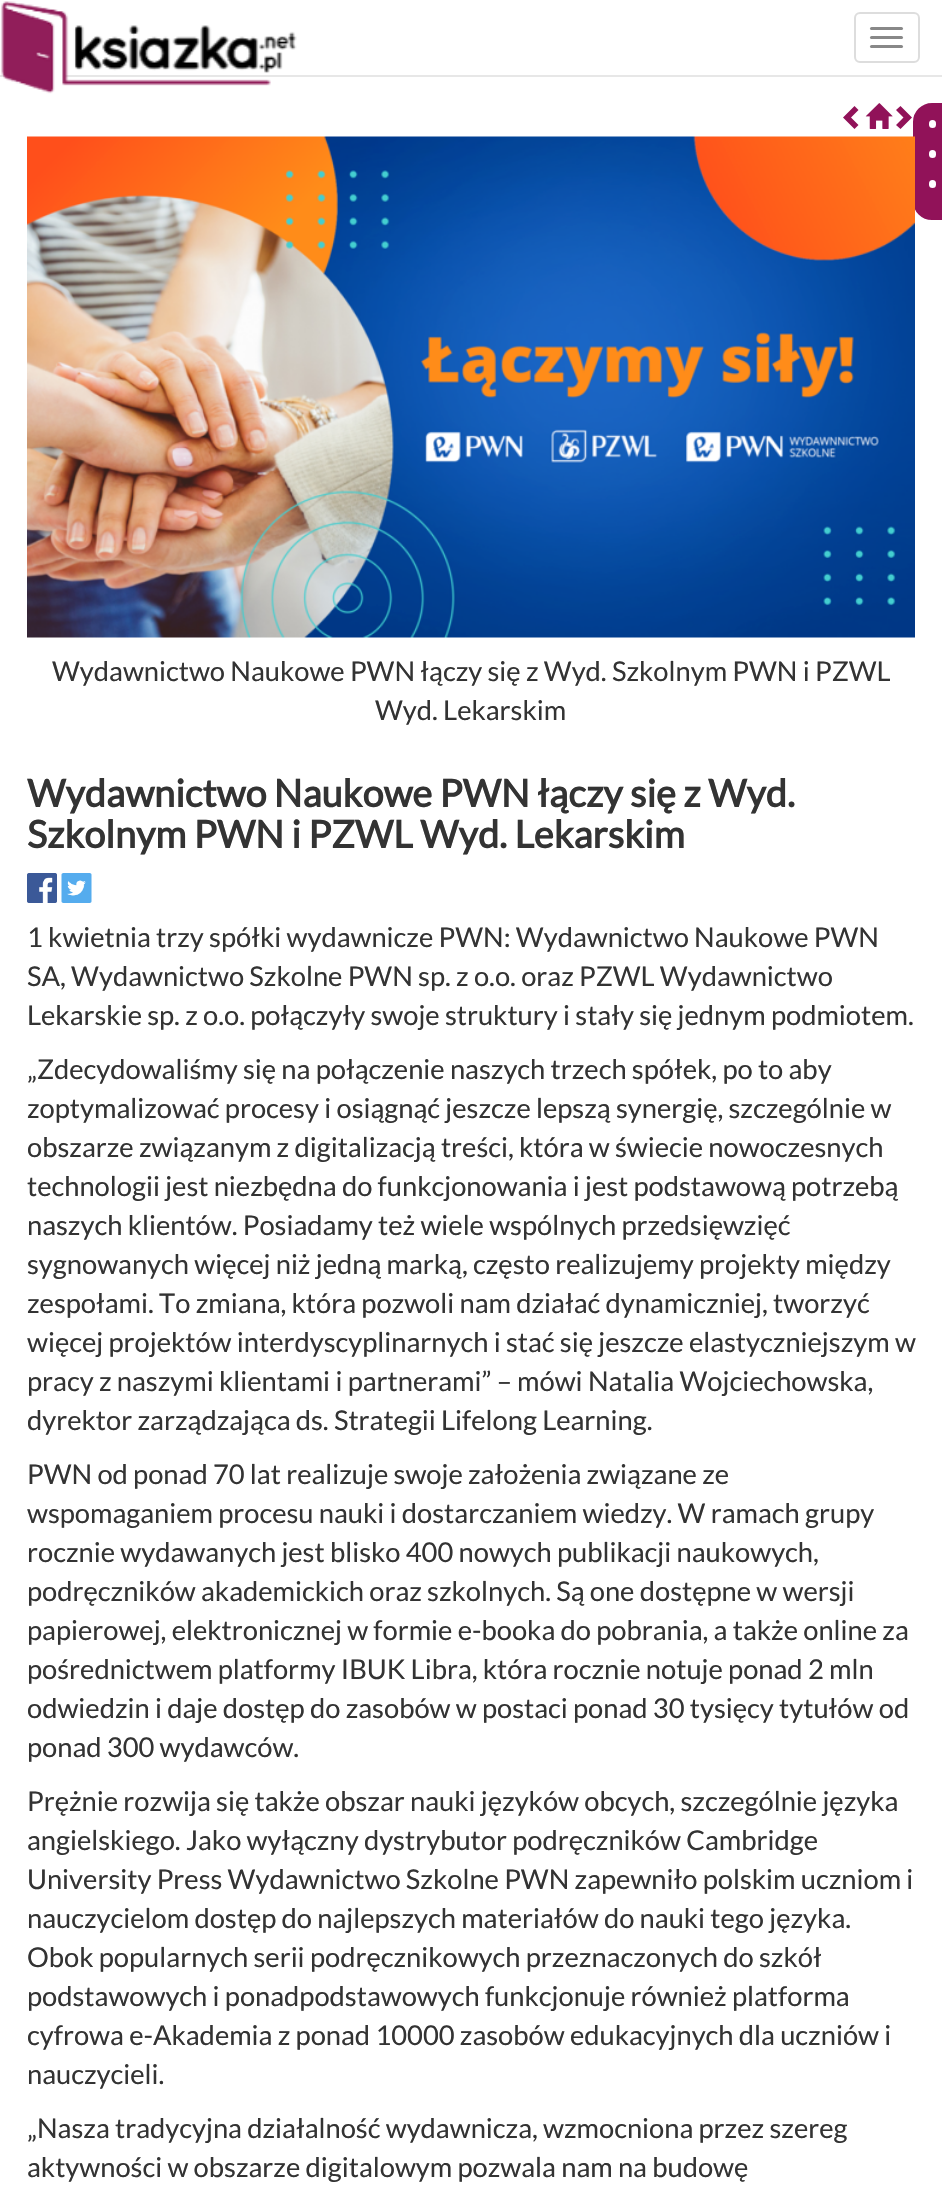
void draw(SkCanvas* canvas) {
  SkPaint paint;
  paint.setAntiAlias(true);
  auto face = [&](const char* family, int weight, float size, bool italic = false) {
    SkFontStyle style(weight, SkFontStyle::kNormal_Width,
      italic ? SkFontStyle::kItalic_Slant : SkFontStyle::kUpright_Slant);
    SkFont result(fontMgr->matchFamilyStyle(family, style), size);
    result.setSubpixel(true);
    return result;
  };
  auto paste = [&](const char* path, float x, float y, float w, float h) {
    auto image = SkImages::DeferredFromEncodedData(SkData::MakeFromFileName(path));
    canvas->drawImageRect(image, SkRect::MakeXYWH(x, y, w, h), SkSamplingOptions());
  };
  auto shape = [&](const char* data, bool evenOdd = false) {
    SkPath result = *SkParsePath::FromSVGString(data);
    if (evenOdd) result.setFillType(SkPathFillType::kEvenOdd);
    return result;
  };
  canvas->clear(0xffffffff);
  paint.setColor(0xffe7e7e7);
  canvas->drawRect(SkRect::MakeXYWH(0, 75, 942, 2), paint);
  paste("img/1.png", 1, 1, 296, 93);
  paint.setStroke(true);
  paint.setStrokeWidth(2);
  paint.setColor(0xffdddddd);
  canvas->drawRoundRect(SkRect::MakeXYWH(855, 13, 64, 49), 5, 5, paint);
  paint.setStroke(false);
  paint.setColor(0xff888888);
  canvas->drawRoundRect(SkRect::MakeXYWH(870, 27, 33, 3), 1.5f, 1.5f, paint);
  canvas->drawRoundRect(SkRect::MakeXYWH(870, 36, 33, 3), 1.5f, 1.5f, paint);
  canvas->drawRoundRect(SkRect::MakeXYWH(870, 45, 33, 3), 1.5f, 1.5f, paint);
  paint.setColor(0xff911259);
  canvas->drawRoundRect(SkRect::MakeXYWH(912, 102, 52, 119), 20, 20, paint);
  paint.setStroke(true);
  paint.setColor(0xffffffff);
  canvas->drawRoundRect(SkRect::MakeXYWH(912, 102, 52, 119), 20, 20, paint);
  paint.setStroke(false);
  canvas->drawRoundRect(SkRect::MakeXYWH(929, 120, 7, 8), 3.5f, 3.5f, paint);
  canvas->drawRoundRect(SkRect::MakeXYWH(929, 150, 7, 8), 3.5f, 3.5f, paint);
  canvas->drawRoundRect(SkRect::MakeXYWH(929, 180, 7, 8), 3.5f, 3.5f, paint);
  paint.setColor(0xff911259);
  canvas->drawPath(shape("M858.5 110L851 117.5L858.5 125L854.5 129L843 117.5L854.5 106Z"), paint);
  paste("img/2.png", 865, 103, 28, 26);
  canvas->drawPath(shape("M912 117.5L900.5 129L896 125L903.5 117.5L896 110L900.5 106Z"), paint);
  paste("img/3.png", 27, 136, 888, 502);
  paste("img/4.png", 27, 873, 30, 30);
  paste("img/5.png", 61, 873, 31, 30);
  auto f0 = face("Lato", 400, 27.3f);
  paint.setColor(0xff333333);
  canvas->drawString("Wydawnictwo Naukowe PWN łączy się z Wyd. Szkolnym PWN i PZWL", 52, 681, f0, paint);
  canvas->drawString("Wyd. Lekarskim", 375, 720, f0, paint);
  auto f1 = face("Lato", 700, 37.8f);
  canvas->drawString("Wydawnictwo Naukowe PWN łączy się z Wyd.", 27, 807, f1, paint);
  canvas->drawString("Szkolnym PWN i PZWL Wyd. Lekarskim", 27, 848, f1, paint);
  {
    const struct { const char* s; float x, y; } items[] = {
      {"1 kwietnia trzy spółki wydawnicze PWN: Wydawnictwo Naukowe PWN", 27, 947},
      {"SA, Wydawnictwo Szkolne PWN sp. z o.o. oraz PZWL Wydawnictwo", 27, 986},
      {"Lekarskie sp. z o.o. połączyły swoje struktury i stały się jednym podmiotem.", 27, 1025},
      {"„Zdecydowaliśmy się na połączenie naszych trzech spółek, po to aby", 27, 1079},
      {"zoptymalizować procesy i osiągnąć jeszcze lepszą synergię, szczególnie w", 27, 1118},
      {"obszarze związanym z digitalizacją treści, która w świecie nowoczesnych", 27, 1157},
      {"technologii jest niezbędna do funkcjonowania i jest podstawową potrzebą", 27, 1196},
      {"naszych klientów. Posiadamy też wiele wspólnych przedsięwzięć", 27, 1235},
      {"sygnowanych więcej niż jedną marką, często realizujemy projekty między", 27, 1274},
      {"zespołami. To zmiana, która pozwoli nam działać dynamiczniej, tworzyć", 27, 1313},
      {"więcej projektów interdyscyplinarnych i stać się jeszcze elastyczniejszym w", 27, 1352},
      {"pracy z naszymi klientami i partnerami” – mówi Natalia Wojciechowska,", 27, 1391},
      {"dyrektor zarządzająca ds. Strategii Lifelong Learning.", 27, 1430},
      {"PWN od ponad 70 lat realizuje swoje założenia związane ze", 27, 1484},
      {"wspomaganiem procesu nauki i dostarczaniem wiedzy. W ramach grupy", 27, 1523},
      {"rocznie wydawanych jest blisko 400 nowych publikacji naukowych,", 27, 1562},
      {"podręczników akademickich oraz szkolnych. Są one dostępne w wersji", 27, 1601},
      {"papierowej, elektronicznej w formie e-booka do pobrania, a także online za", 27, 1640},
      {"pośrednictwem platformy IBUK Libra, która rocznie notuje ponad 2 mln", 27, 1679},
      {"odwiedzin i daje dostęp do zasobów w postaci ponad 30 tysięcy tytułów od", 27, 1718},
      {"ponad 300 wydawców.", 27, 1757},
      {"Prężnie rozwija się także obszar nauki języków obcych, szczególnie języka", 27, 1811},
      {"angielskiego. Jako wyłączny dystrybutor podręczników Cambridge", 27, 1850},
      {"University Press Wydawnictwo Szkolne PWN zapewniło polskim uczniom i", 27, 1889},
      {"nauczycielom dostęp do najlepszych materiałów do nauki tego języka.", 27, 1928},
      {"Obok popularnych serii podręcznikowych przeznaczonych do szkół", 27, 1967},
      {"podstawowych i ponadpodstawowych funkcjonuje również platforma", 27, 2006},
      {"cyfrowa e-Akademia z ponad 10000 zasobów edukacyjnych dla uczniów i", 27, 2045},
      {"nauczycieli.", 27, 2084},
      {"„Nasza tradycyjna działalność wydawnicza, wzmocniona przez szereg", 27, 2138},
      {"aktywności w obszarze digitalowym pozwala nam na budowę", 27, 2177},
    };
    for (auto [s, x, y] : items) {
      canvas->drawString(s, x, y, f0, paint);
    }
  }
}
